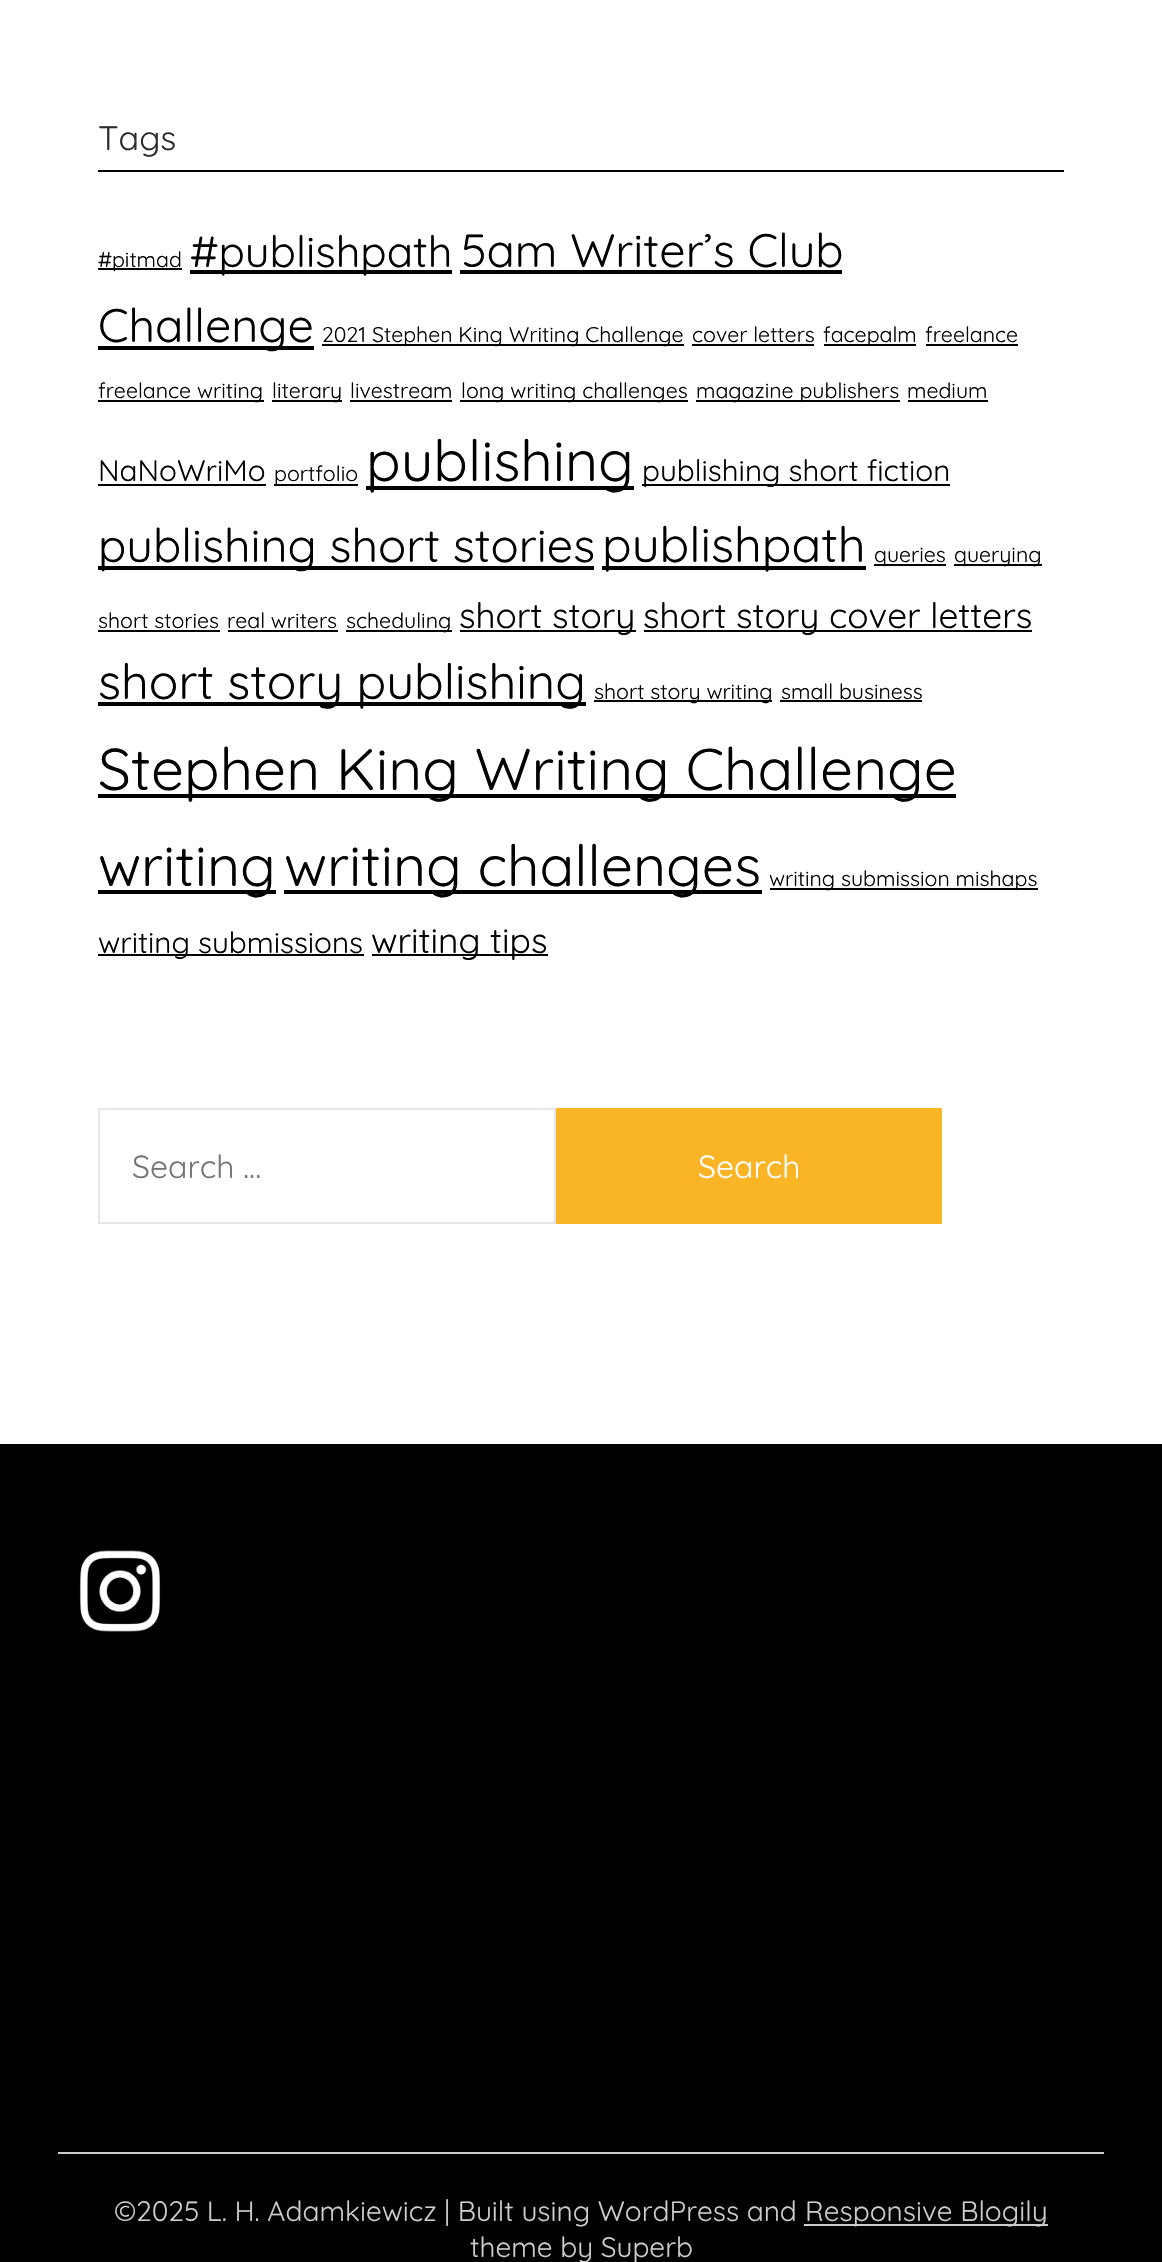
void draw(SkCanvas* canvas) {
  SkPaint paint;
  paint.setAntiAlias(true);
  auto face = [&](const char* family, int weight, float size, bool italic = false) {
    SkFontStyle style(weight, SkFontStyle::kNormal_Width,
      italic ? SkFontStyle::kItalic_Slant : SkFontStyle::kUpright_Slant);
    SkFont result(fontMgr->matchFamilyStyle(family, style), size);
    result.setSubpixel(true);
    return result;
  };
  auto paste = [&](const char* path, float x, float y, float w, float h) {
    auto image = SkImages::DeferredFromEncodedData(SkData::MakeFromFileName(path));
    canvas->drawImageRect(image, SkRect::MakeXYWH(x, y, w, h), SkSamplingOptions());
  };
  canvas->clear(0xffffffff);
  {
    const struct { float x, y, w, h; SkColor color; } items[] = {
      {98, 170, 966, 2, 0xff000000},
      {98, 268, 84, 2, 0xff000000},
      {190, 270, 262, 4, 0xff000000},
      {460, 270, 382, 4, 0xff000000},
      {98, 346, 216, 4, 0xff000000},
      {322, 344, 362, 2, 0xff000000},
      {692, 344, 122, 2, 0xff000000},
      {824, 344, 92, 2, 0xff000000},
      {926, 344, 92, 2, 0xff000000},
      {98, 400, 166, 2, 0xff000000},
      {272, 400, 70, 2, 0xff000000},
      {350, 400, 102, 2, 0xff000000},
      {460, 400, 228, 2, 0xff000000},
      {696, 400, 204, 2, 0xff000000},
      {908, 400, 80, 2, 0xff000000},
      {98, 484, 168, 2, 0xff000000},
      {274, 484, 84, 2, 0xff000000},
      {366, 486, 268, 4, 0xff000000},
      {642, 484, 308, 2, 0xff000000},
      {98, 566, 496, 4, 0xff000000},
      {602, 566, 264, 4, 0xff000000},
      {874, 564, 72, 2, 0xff000000},
      {954, 564, 88, 2, 0xff000000},
      {98, 630, 122, 2, 0xff000000},
      {228, 630, 110, 2, 0xff000000},
      {346, 630, 106, 2, 0xff000000},
      {460, 630, 176, 2, 0xff000000},
      {644, 630, 388, 2, 0xff000000},
      {98, 702, 488, 4, 0xff000000},
      {594, 700, 178, 2, 0xff000000},
      {780, 700, 142, 2, 0xff000000},
      {98, 794, 858, 4, 0xff000000},
      {98, 890, 178, 4, 0xff000000},
      {284, 890, 478, 4, 0xff000000},
      {770, 888, 268, 2, 0xff000000},
      {98, 954, 266, 2, 0xff000000},
      {372, 954, 176, 2, 0xff000000},
    };
    for (auto [x, y, w, h, color] : items) {
      paint.setColor(color);
      canvas->drawRect(SkRect::MakeXYWH(x, y, w, h), paint);
    }
  }
  paint.setStroke(true);
  paint.setStrokeWidth(2);
  paint.setColor(0xffe5e6e9);
  canvas->drawRect(SkRect::MakeXYWH(99, 1109, 456, 114), paint);
  paint.setStroke(false);
  paint.setColor(0xfffab526);
  canvas->drawRect(SkRect::MakeXYWH(556, 1108, 386, 116), paint);
  paint.setColor(0xff000000);
  canvas->drawRect(SkRect::MakeXYWH(0, 1444, 1162, 818), paint);
  paste("img/1.png", 79, 1550, 82, 82);
  paint.setColor(0xffcccccc);
  canvas->drawRect(SkRect::MakeXYWH(58, 2152, 1046, 2), paint);
  canvas->drawRect(SkRect::MakeXYWH(804, 2224, 244, 2), paint);
  auto f0 = face("Quicksand", 400, 34);
  paint.setColor(0xff2b2b2b);
  canvas->drawString("Tags", 98, 150, f0, paint);
  auto f1 = face("Quicksand", 400, 21.3f);
  paint.setColor(0xff000000);
  canvas->drawString("#pitmad", 98, 267, f1, paint);
  auto f2 = face("Quicksand", 400, 43.5f);
  canvas->drawString("#publishpath", 190, 267, f2, paint);
  auto f3 = face("Quicksand", 400, 46.75f);
  canvas->drawString("5am Writer’s Club", 461, 267, f3, paint);
  canvas->drawString("Challenge", 98, 342, f3, paint);
  {
    const struct { const char* s; float x, y; } items[] = {
      {"2021 Stephen King Writing Challenge", 322, 342},
      {"cover letters", 692, 342},
      {"facepalm", 823, 342},
      {"freelance", 925, 342},
      {"freelance writing", 98, 398},
      {"literary", 272, 398},
      {"livestream", 350, 398},
      {"long writing challenges", 461, 398},
      {"magazine publishers", 696, 398},
      {"medium", 907, 398},
    };
    for (auto [s, x, y] : items) {
      canvas->drawString(s, x, y, f1, paint);
    }
  }
  auto f4 = face("Quicksand", 400, 29.6f);
  canvas->drawString("NaNoWriMo", 98, 481, f4, paint);
  canvas->drawString("portfolio", 274, 481, f1, paint);
  auto f5 = face("Quicksand", 400, 57.25f);
  canvas->drawString("publishing", 366, 481, f5, paint);
  canvas->drawString("publishing short fiction", 642, 481, f4, paint);
  canvas->drawString("publishing short stories", 98, 562, f3, paint);
  auto f6 = face("Quicksand", 400, 49);
  canvas->drawString("publishpath", 602, 562, f6, paint);
  {
    const struct { const char* s; float x, y; } items[] = {
      {"queries", 874, 562},
      {"querying", 954, 562},
      {"short stories", 98, 628},
      {"real writers", 227, 628},
      {"scheduling", 346, 628},
    };
    for (auto [s, x, y] : items) {
      canvas->drawString(s, x, y, f1, paint);
    }
  }
  auto f7 = face("Quicksand", 400, 35.25f);
  canvas->drawString("short story", 459, 628, f7, paint);
  canvas->drawString("short story cover letters", 643, 628, f7, paint);
  canvas->drawString("short story publishing", 98, 699, f6, paint);
  canvas->drawString("short story writing", 594, 699, f1, paint);
  canvas->drawString("small business", 781, 699, f1, paint);
  auto f8 = face("Quicksand", 400, 58.7f);
  canvas->drawString("Stephen King Writing Challenge", 98, 790, f8, paint);
  canvas->drawString("writing", 98, 886, f5, paint);
  canvas->drawString("writing challenges", 284, 886, f5, paint);
  canvas->drawString("writing submission mishaps", 769, 886, f1, paint);
  canvas->drawString("writing submissions", 98, 953, f4, paint);
  canvas->drawString("writing tips", 371, 953, f7, paint);
  auto f9 = face("Quicksand", 400, 32);
  paint.setColor(0xff757575);
  canvas->drawString("Search …", 132, 1178, f9, paint);
  paint.setColor(0xffffffff);
  canvas->drawString("Search", 698, 1178, f9, paint);
  auto f10 = face("Quicksand", 400, 28);
  paint.setColor(0xffcccccc);
  {
    const struct { const char* s; float x, y; } items[] = {
      {"©2025 L. H. Adamkiewicz | Built using WordPress and", 114, 2221},
      {"Responsive Blogily", 805, 2221},
      {"theme by Superb", 470, 2257},
    };
    for (auto [s, x, y] : items) {
      canvas->drawString(s, x, y, f10, paint);
    }
  }
}
